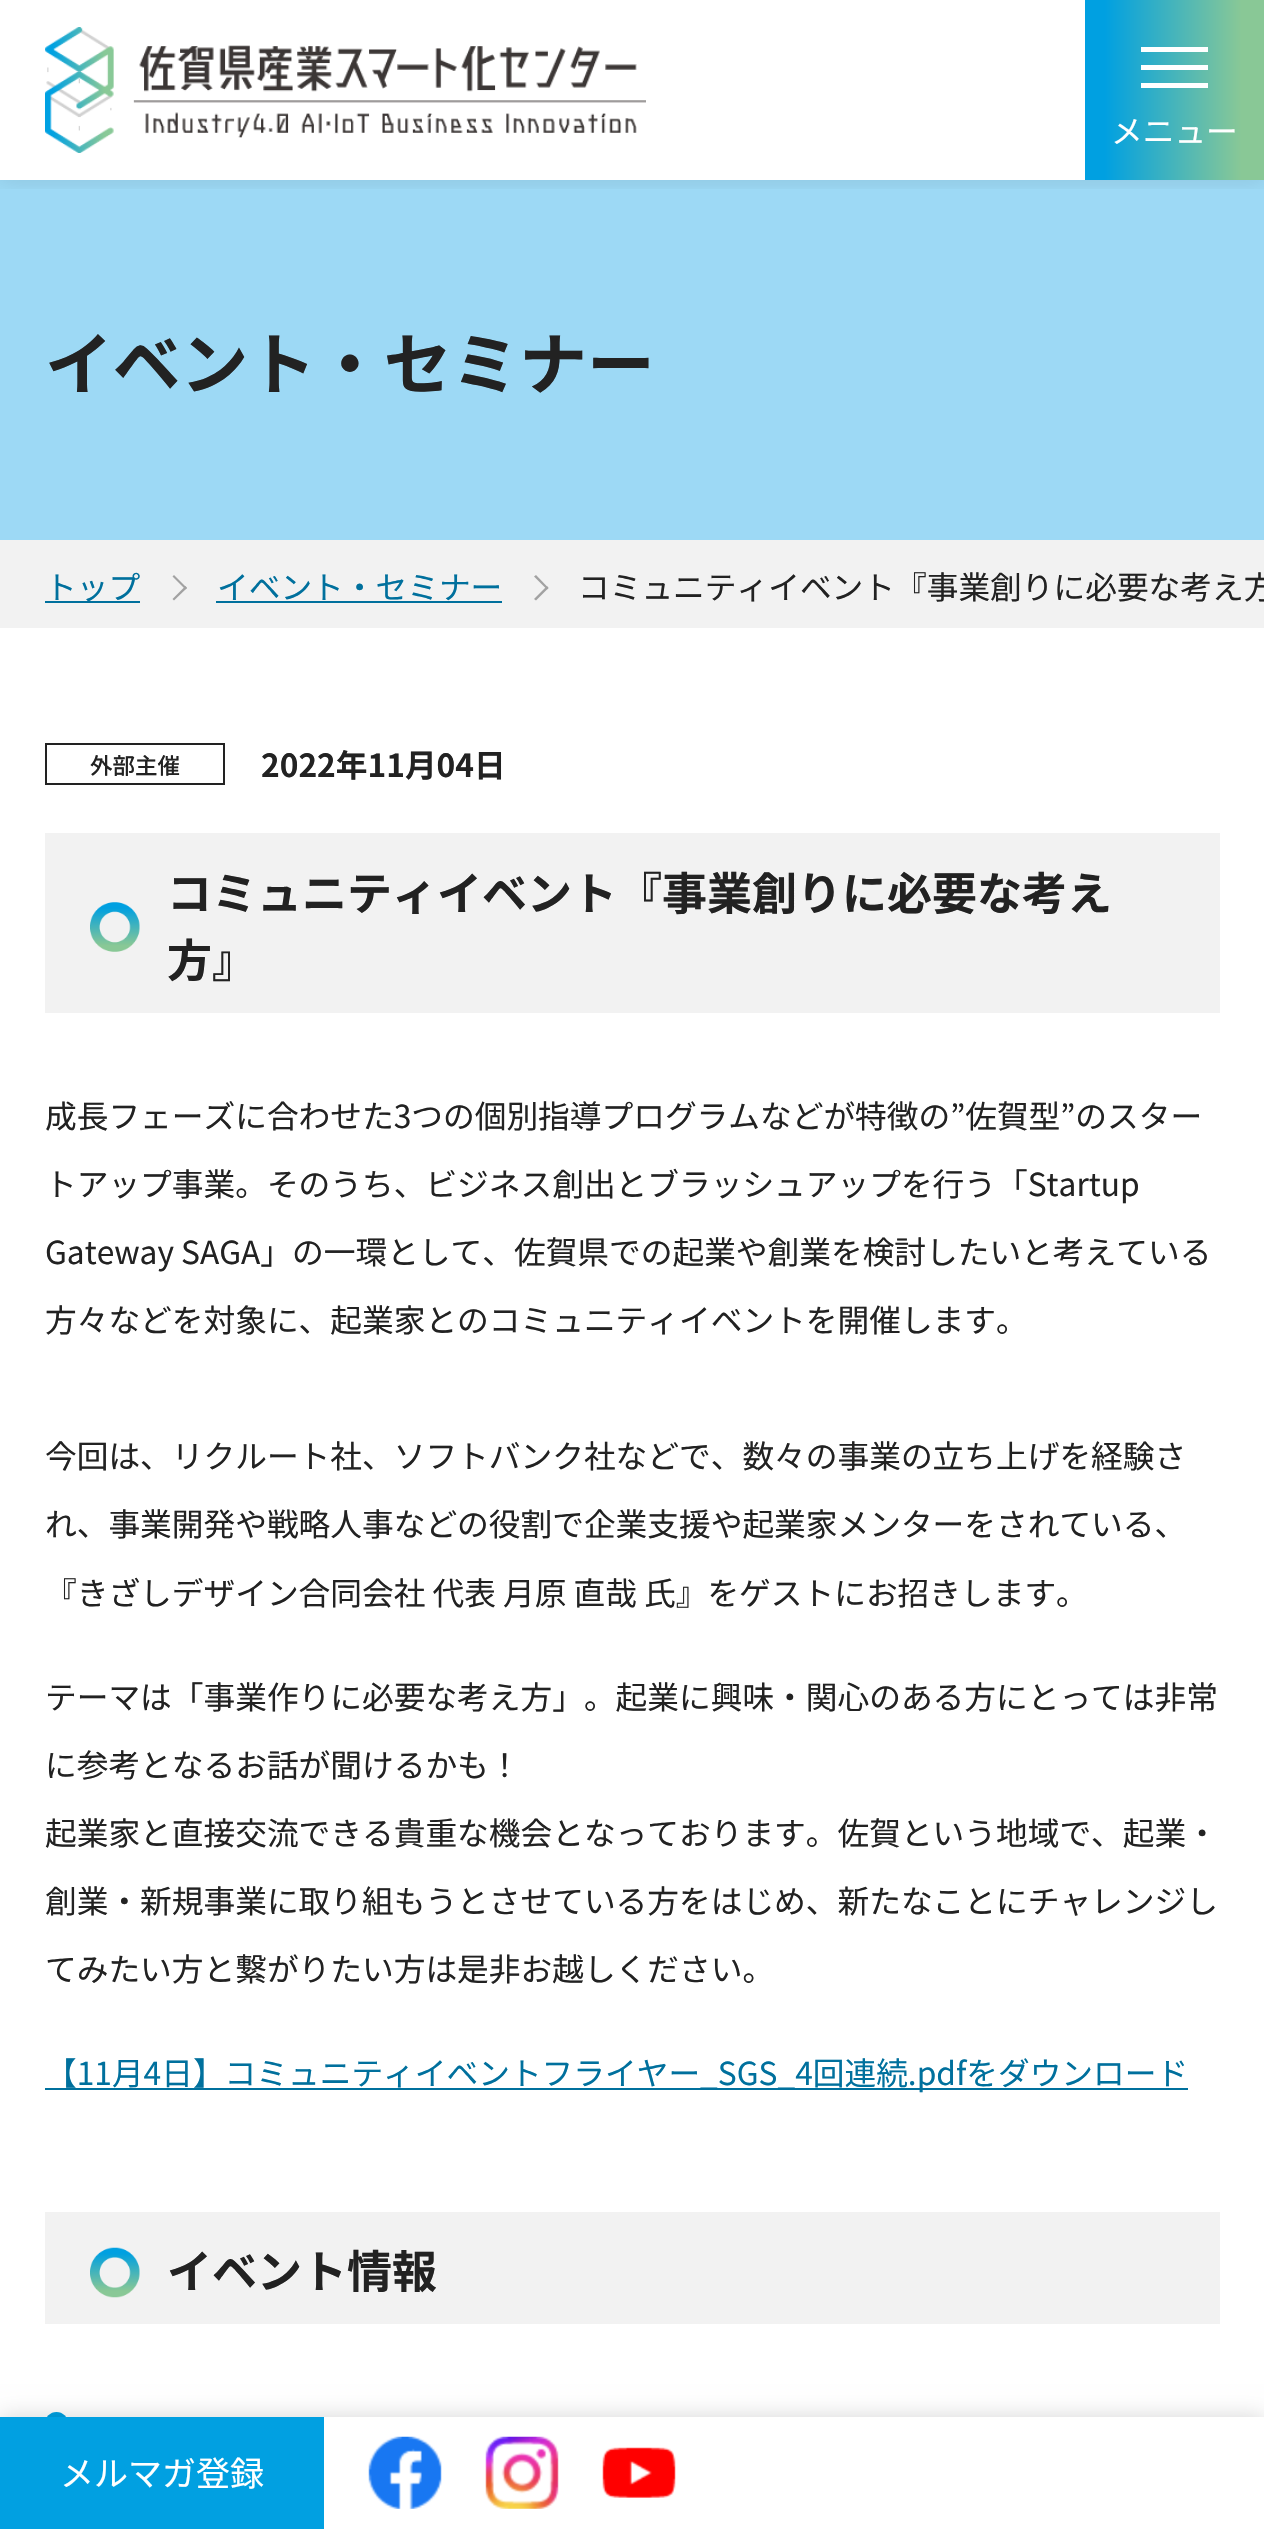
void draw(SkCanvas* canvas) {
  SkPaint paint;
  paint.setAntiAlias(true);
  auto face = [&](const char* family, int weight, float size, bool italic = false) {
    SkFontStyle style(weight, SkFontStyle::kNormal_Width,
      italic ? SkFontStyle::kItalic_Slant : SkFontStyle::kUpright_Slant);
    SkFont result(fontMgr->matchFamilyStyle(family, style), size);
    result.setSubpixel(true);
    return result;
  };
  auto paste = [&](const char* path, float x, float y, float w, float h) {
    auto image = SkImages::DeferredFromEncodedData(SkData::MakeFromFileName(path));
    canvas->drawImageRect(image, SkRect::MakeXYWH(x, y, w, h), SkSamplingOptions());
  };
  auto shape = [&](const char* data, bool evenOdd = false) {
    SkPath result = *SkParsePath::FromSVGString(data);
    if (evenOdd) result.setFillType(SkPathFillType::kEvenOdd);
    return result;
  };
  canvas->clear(0xffffffff);
  paint.setColor(0xff9dd9f5);
  canvas->drawRect(SkRect::MakeXYWH(0, 180, 1264, 360), paint);
  canvas->save();
  canvas->clipRect(SkRect::MakeXYWH(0, 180, 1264, 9));
  paint.setColor(0x1a000000);
  paint.setMaskFilter(SkMaskFilter::MakeBlur(kNormal_SkBlurStyle, 11));
  canvas->drawRect(SkRect::MakeXYWH(0, 0, 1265, 180), paint);
  paint.setMaskFilter(nullptr);
  canvas->restore();
  paste("img/1.png", 45, 27, 601, 126);
  {
    const SkColor colors[] = {0xff00a0e1, 0xff89c896};
    const float stops[] = {0.11f, 0.87f};
    const SkPoint ends[] = {{1085, 90}, {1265, 90}};
    paint.setShader(SkGradientShader::MakeLinear(ends, colors, stops, 2, SkTileMode::kClamp));
    paint.setAlpha(255);
  }
  canvas->drawRect(SkRect::MakeXYWH(1085, 0, 179, 180), paint);
  paint.setShader(nullptr);
  {
    const struct { float x, y, w, h; SkColor color; } items[] = {
      {1141, 47, 67, 5, 0xffffffff},
      {1141, 65, 67, 5, 0xffffffff},
      {1141, 83, 67, 5, 0xffffffff},
      {0, 540, 1264, 88, 0xfff2f2f2},
      {45, 601, 95, 2, 0xff00709d},
    };
    for (auto [x, y, w, h, color] : items) {
      paint.setColor(color);
      canvas->drawRect(SkRect::MakeXYWH(x, y, w, h), paint);
    }
  }
  paint.setColor(0xffa2a2a2);
  canvas->drawPath(shape("M172.5 576.5L174 575L187 588L185.5 589.5Z"), paint);
  canvas->drawPath(shape("M172.5 599L185.5 586L187 588L174 600.5Z"), paint);
  paint.setColor(0xff00709d);
  canvas->drawRect(SkRect::MakeXYWH(216, 601, 286, 2), paint);
  paint.setColor(0xffa2a2a2);
  canvas->drawPath(shape("M534 576.5L536 575L548.5 588L547 589.5Z"), paint);
  canvas->drawPath(shape("M534 599L547 586L548.5 588L536 600.5Z"), paint);
  paint.setStroke(true);
  paint.setStrokeWidth(2);
  paint.setColor(0xff222222);
  canvas->drawRect(SkRect::MakeXYWH(46, 744, 178, 40), paint);
  paint.setStroke(false);
  paint.setColor(0xfff2f2f2);
  canvas->drawRect(SkRect::MakeXYWH(45, 833, 1175, 180), paint);
  paste("img/2.png", 90, 902, 50, 50);
  paint.setColor(0xff00709d);
  canvas->drawRect(SkRect::MakeXYWH(45, 2088, 1143, 2), paint);
  paint.setColor(0xfff2f2f2);
  canvas->drawRect(SkRect::MakeXYWH(45, 2212, 1175, 112), paint);
  paste("img/3.png", 90, 2247, 50, 51);
  paint.setColor(0xff00a0e1);
  canvas->drawCircle(56.5f, 2423.5f, 11.5f, paint);
  paint.setColor(0x29000000);
  paint.setMaskFilter(SkMaskFilter::MakeBlur(kNormal_SkBlurStyle, 11));
  canvas->drawRect(SkRect::MakeXYWH(0, 2417, 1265, 112), paint);
  paint.setMaskFilter(nullptr);
  paint.setColor(0xffffffff);
  canvas->drawRect(SkRect::MakeXYWH(324, 2417, 940, 112), paint);
  paint.setColor(0xff01a0e1);
  canvas->drawRect(SkRect::MakeXYWH(0, 2417, 324, 112), paint);
  paste("img/4.png", 368, 2436, 74, 73);
  paste("img/5.png", 485, 2436, 74, 73);
  paste("img/6.png", 602, 2447, 74, 51);
  auto f0 = face("Noto Sans JP", 400, 31.7f);
  paint.setColor(0xffffffff);
  canvas->drawString("メニュー", 1111, 143, f0, paint);
  auto f1 = face("Noto Sans JP", 700, 67.75f);
  paint.setColor(0xff222222);
  canvas->drawString("イベント・セミナー", 45, 389, f1, paint);
  paint.setColor(0xff00709d);
  canvas->drawString("トップ", 45, 599, f0, paint);
  canvas->drawString("イベント・セミナー", 217, 599, f0, paint);
  paint.setColor(0xff222222);
  canvas->drawString("コミュニティイベント『事業創りに必要な考え方", 578, 599, f0, paint);
  auto f2 = face("Noto Sans JP", 500, 22.5f);
  canvas->drawString("外部主催", 90, 774, f2, paint);
  auto f3 = face("Noto Sans JP", 700, 31.7f);
  canvas->drawString("2022年11月04日", 261, 777, f3, paint);
  auto f4 = face("Noto Sans JP", 700, 45);
  canvas->drawString("コミュニティイベント『事業創りに必要な考え", 167, 910, f4, paint);
  canvas->drawString("方』", 167, 977, f4, paint);
  {
    const struct { const char* s; float x, y; } items[] = {
      {"成長フェーズに合わせた3つの個別指導プログラムなどが特徴の”佐賀型”のスター", 45, 1128},
      {"トアップ事業。そのうち、ビジネス創出とブラッシュアップを行う「Startup", 45, 1196},
      {"Gateway SAGA」の一環として、佐賀県での起業や創業を検討したいと考えている", 45, 1264},
      {"方々などを対象に、起業家とのコミュニティイベントを開催します。", 45, 1332},
      {"今回は、リクルート社、ソフトバンク社などで、数々の事業の立ち上げを経験さ", 45, 1468},
      {"れ、事業開発や戦略人事などの役割で企業支援や起業家メンターをされている、", 45, 1536},
      {"『きざしデザイン合同会社 代表 月原 直哉 氏』をゲストにお招きします。", 45, 1605},
      {"テーマは「事業作りに必要な考え方」。起業に興味・関心のある方にとっては非常", 45, 1709},
      {"に参考となるお話が聞けるかも！", 45, 1777},
      {"起業家と直接交流できる貴重な機会となっております。佐賀という地域で、起業・", 45, 1845},
      {"創業・新規事業に取り組もうとさせている方をはじめ、新たなことにチャレンジし", 45, 1913},
      {"てみたい方と繋がりたい方は是非お越しください。", 45, 1981},
    };
    for (auto [s, x, y] : items) {
      canvas->drawString(s, x, y, f0, paint);
    }
  }
  paint.setColor(0xff00709d);
  canvas->drawString("【11月4日】コミュニティイベントフライヤー_SGS_4回連続.pdfをダウンロード", 45, 2085, f0, paint);
  paint.setColor(0xff222222);
  canvas->drawString("イベント情報", 167, 2288, f4, paint);
  auto f5 = face("Noto Sans JP", 400, 34);
  paint.setColor(0xffffffff);
  canvas->drawString("メルマガ登録", 60, 2486, f5, paint);
}
